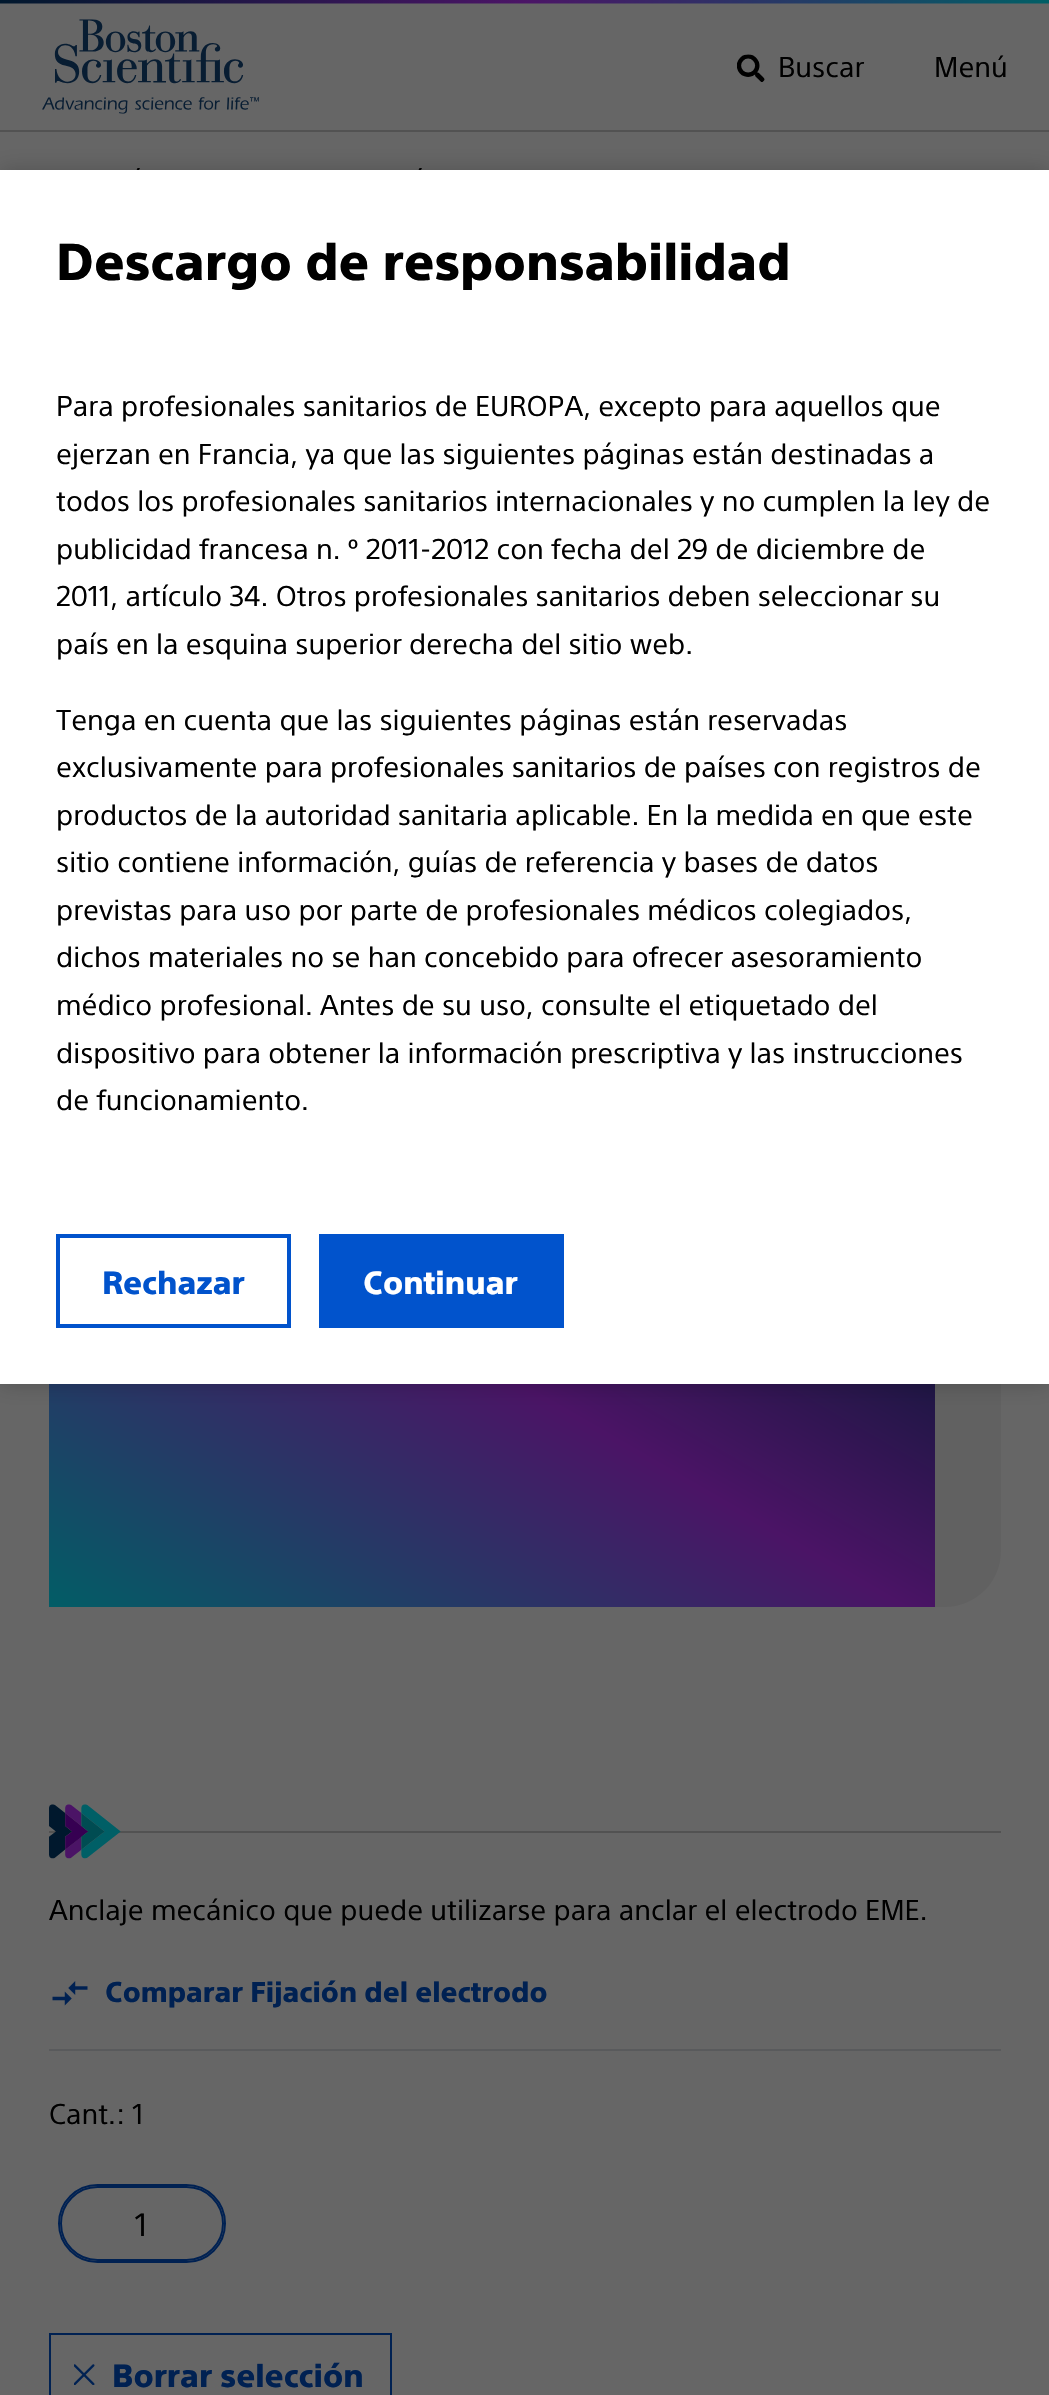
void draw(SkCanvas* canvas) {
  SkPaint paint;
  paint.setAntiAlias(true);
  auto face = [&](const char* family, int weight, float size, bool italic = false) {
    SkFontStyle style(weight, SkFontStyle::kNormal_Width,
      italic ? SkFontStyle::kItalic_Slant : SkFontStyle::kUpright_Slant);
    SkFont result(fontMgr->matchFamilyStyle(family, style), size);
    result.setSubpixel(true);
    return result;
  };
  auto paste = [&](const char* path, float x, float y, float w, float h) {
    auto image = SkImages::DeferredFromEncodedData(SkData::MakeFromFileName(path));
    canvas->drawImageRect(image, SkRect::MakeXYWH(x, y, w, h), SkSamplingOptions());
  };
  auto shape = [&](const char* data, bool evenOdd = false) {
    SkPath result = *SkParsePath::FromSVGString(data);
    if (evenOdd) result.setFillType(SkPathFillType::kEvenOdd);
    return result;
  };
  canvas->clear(0xff666666);
  paste("img/1.png", 0, 0, 1049, 4);
  paint.setColor(0xff525252);
  canvas->drawRect(SkRect::MakeXYWH(0, 130, 1049, 2), paint);
  paste("img/2.png", 42, 19, 217, 95);
  paste("img/3.png", 737, 54, 28, 28);
  paint.setColor(0xff000000);
  canvas->drawPath(shape("M137.5 168H140L130 189H128Z"), paint);
  canvas->drawPath(shape("M419.5 168H422L412 189H409.5Z"), paint);
  {
    const SkColor colors[] = {0xff666666, 0xff616161, 0xff666666, 0xff616161};
    const float stops[] = {0, 0.33f, 0.67f, 1};
    const SkPoint ends[] = {{49, 1131}, {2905, 1131}};
    paint.setShader(SkGradientShader::MakeLinear(ends, colors, stops, 4, SkTileMode::kClamp));
    paint.setAlpha(255);
  }
  canvas->drawRoundRect(SkRect::MakeXYWH(49, 655, 952, 952), 56, 56, paint);
  {
    const SkColor colors[] = {0xff00182d, 0xff4b1466, 0xff005f66};
    const float stops[] = {0.35f, 0.64f, 1};
    const SkPoint ends[] = {{794, 640}, {183, 1698}};
    paint.setShader(SkGradientShader::MakeLinear(ends, colors, stops, 3, SkTileMode::kClamp));
    paint.setAlpha(255);
  }
  canvas->drawRect(SkRect::MakeXYWH(49, 1384, 886, 223), paint);
  paint.setShader(nullptr);
  paint.setColor(0xff525252);
  canvas->drawRect(SkRect::MakeXYWH(49, 1831, 952, 2), paint);
  paste("img/4.png", 49, 1804, 72, 55);
  paint.setColor(0xff595a5c);
  canvas->drawRect(SkRect::MakeXYWH(49, 2049, 952, 2), paint);
  paste("img/5.png", 52, 1981, 36, 25);
  paint.setStroke(true);
  paint.setStrokeWidth(2);
  paint.setColor(0xff002152);
  canvas->drawRoundRect(SkRect::MakeXYWH(61, 2187, 162, 73), 36.5f, 36.5f, paint);
  canvas->drawRoundRect(SkRect::MakeXYWH(59, 2185, 166, 77), 38.5f, 38.5f, paint);
  canvas->drawRect(SkRect::MakeXYWH(50, 2334, 341, 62), paint);
  paste("img/6.png", 74, 2364, 21, 21);
  paint.setStroke(false);
  paint.setColor(0x33000000);
  paint.setMaskFilter(SkMaskFilter::MakeBlur(kNormal_SkBlurStyle, 10.5f));
  canvas->drawRect(SkRect::MakeXYWH(0, 170, 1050, 1214), paint);
  paint.setMaskFilter(nullptr);
  paint.setColor(0xffffffff);
  canvas->drawRect(SkRect::MakeXYWH(0, 170, 1049, 1214), paint);
  paint.setStroke(true);
  paint.setStrokeWidth(4);
  paint.setColor(0xff0153cc);
  canvas->drawRect(SkRect::MakeXYWH(58, 1236, 231, 90), paint);
  paint.setStroke(false);
  canvas->drawRect(SkRect::MakeXYWH(319, 1234, 245, 94), paint);
  auto f0 = face("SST", 400, 28);
  paint.setColor(0xff000000);
  {
    const struct { const char* s; float x, y; } items[] = {
      {"Buscar", 778, 77},
      {"Menú", 934, 77},
      {"Anclaje mecánico que puede utilizarse para anclar el electrodo EME.", 49, 1920},
    };
    for (auto [s, x, y] : items) {
      canvas->drawString(s, x, y, f0, paint);
    }
  }
  auto f1 = face("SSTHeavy", 900, 28);
  paint.setColor(0xff002152);
  canvas->drawString("Comparar Fijación del electrodo", 105, 2002, f1, paint);
  paint.setColor(0xff000000);
  canvas->drawString("Cant.: 1", 49, 2124, f0, paint);
  auto f2 = face("SST", 400, 31.5f);
  canvas->drawString("1", 135, 2236, f2, paint);
  auto f3 = face("SSTHeavy", 900, 31.5f);
  paint.setColor(0xff002152);
  canvas->drawString("Borrar selección", 112, 2387, f3, paint);
  auto f4 = face("SSTHeavy", 900, 50.75f);
  paint.setColor(0xff000000);
  canvas->drawString("Descargo de responsabilidad", 56, 280, f4, paint);
  {
    const struct { const char* s; float x, y; } items[] = {
      {"Para profesionales sanitarios de EUROPA, excepto para aquellos que", 56, 416},
      {"ejerzan en Francia, ya que las siguientes páginas están destinadas a", 56, 464},
      {"todos los profesionales sanitarios internacionales y no cumplen la ley de", 56, 511},
      {"publicidad francesa n. º 2011-2012 con fecha del 29 de diciembre de", 56, 559},
      {"2011, artículo 34. Otros profesionales sanitarios deben seleccionar su", 56, 606},
      {"país en la esquina superior derecha del sitio web.", 56, 654},
      {"Tenga en cuenta que las siguientes páginas están reservadas", 56, 730},
      {"exclusivamente para profesionales sanitarios de países con registros de", 56, 777},
      {"productos de la autoridad sanitaria aplicable. En la medida en que este", 56, 825},
      {"sitio contiene información, guías de referencia y bases de datos", 56, 872},
      {"previstas para uso por parte de profesionales médicos colegiados,", 56, 920},
      {"dichos materiales no se han concebido para ofrecer asesoramiento", 56, 967},
      {"médico profesional. Antes de su uso, consulte el etiquetado del", 56, 1015},
      {"dispositivo para obtener la información prescriptiva y las instrucciones", 56, 1063},
      {"de funcionamiento.", 56, 1110},
    };
    for (auto [s, x, y] : items) {
      canvas->drawString(s, x, y, f0, paint);
    }
  }
  paint.setColor(0xff0153cc);
  canvas->drawString("Rechazar", 102, 1294, f3, paint);
  paint.setColor(0xffffffff);
  canvas->drawString("Continuar", 363, 1294, f3, paint);
}
